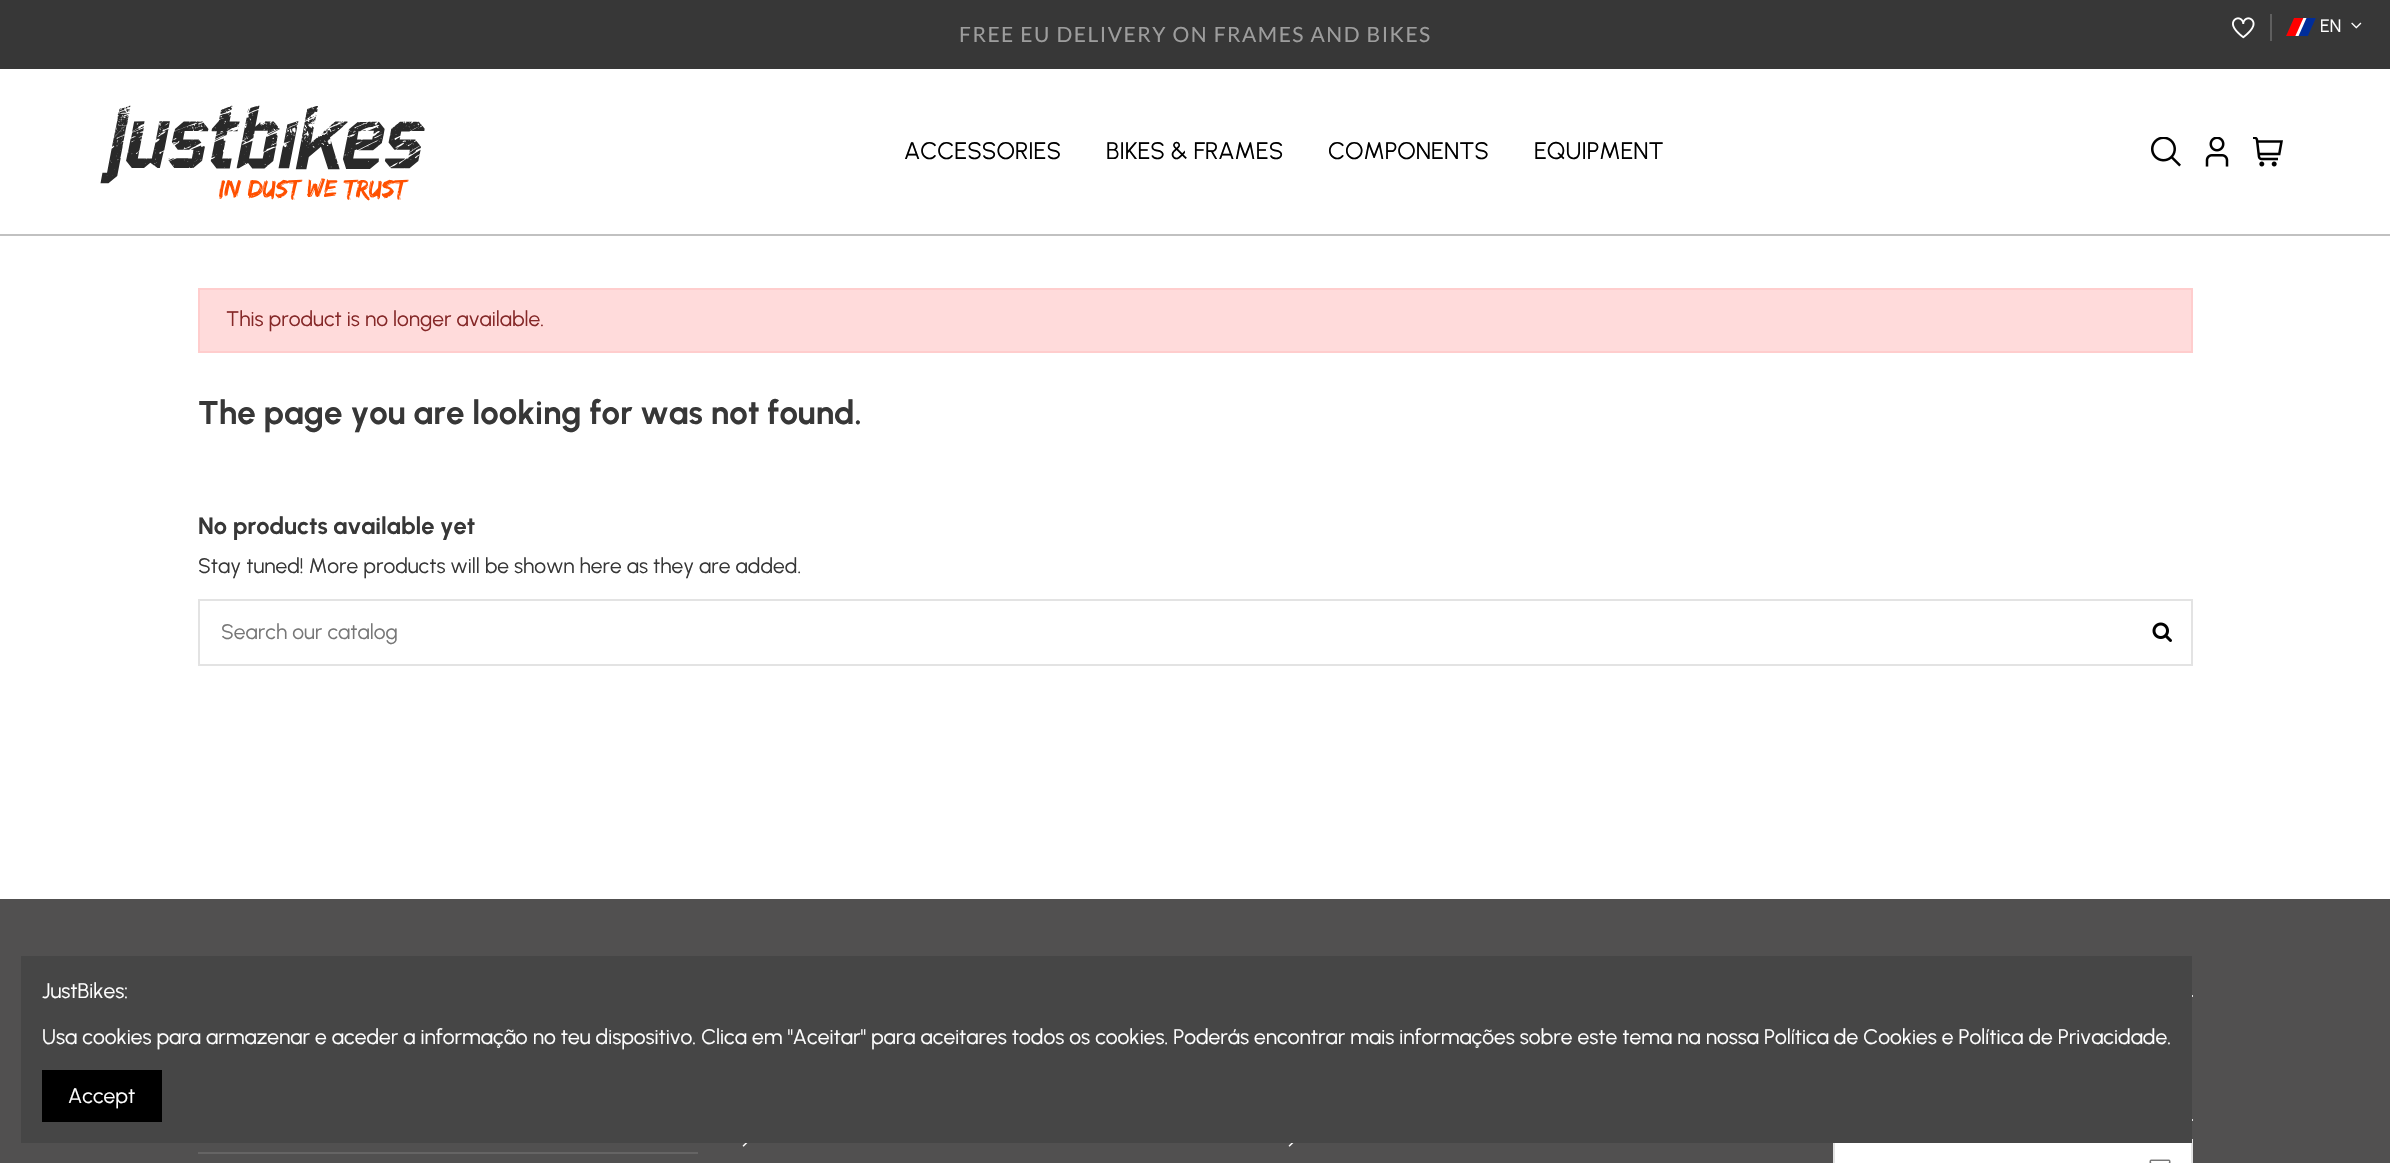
void draw(SkCanvas* canvas) {
  SkPaint paint;
  paint.setAntiAlias(true);
  auto face = [&](const char* family, int weight, float size, bool italic = false) {
    SkFontStyle style(weight, SkFontStyle::kNormal_Width,
      italic ? SkFontStyle::kItalic_Slant : SkFontStyle::kUpright_Slant);
    SkFont result(fontMgr->matchFamilyStyle(family, style), size);
    result.setSubpixel(true);
    return result;
  };
  auto writeSpaced = [&](const char* s, float x, float y, const SkFont& font, const SkPaint& ink, float letter, float word) {
    std::vector<SkGlyphID> glyphs(font.countText(s, strlen(s), SkTextEncoding::kUTF8));
    std::vector<float> xs(glyphs.size());
    font.textToGlyphs(s, strlen(s), SkTextEncoding::kUTF8, glyphs);
    font.getXPos(glyphs, xs, x);
    float extra = 0;
    for (size_t i = 0; i < glyphs.size(); i++) {
      xs[i] += extra;
      extra += letter + word * (glyphs[i] == font.unicharToGlyph(' '));
    }
    canvas->drawTextBlob(SkTextBlob::MakeFromPosHGlyphs(glyphs, xs, y, font), 0, 0, ink);
  };
  auto paste = [&](const char* path, float x, float y, float w, float h) {
    auto image = SkImages::DeferredFromEncodedData(SkData::MakeFromFileName(path));
    canvas->drawImageRect(image, SkRect::MakeXYWH(x, y, w, h), SkSamplingOptions());
  };
  canvas->clear(0xffffffff);
  paint.setColor(0xff373737);
  canvas->drawRect(SkRect::MakeXYWH(0, 0, 2390, 69), paint);
  paste("img/1.png", 2232, 17, 23, 22);
  paint.setColor(0xff5f5f5f);
  canvas->drawRect(SkRect::MakeXYWH(2270, 14, 2, 27), paint);
  paste("img/2.png", 2286, 18, 30, 18);
  paste("img/3.png", 2351, 22, 11, 7);
  paint.setColor(0xffc1c1c1);
  canvas->drawRect(SkRect::MakeXYWH(0, 234, 2390, 2), paint);
  paste("img/4.png", 100, 105, 325, 96);
  paste("img/5.png", 2151, 137, 30, 30);
  paste("img/6.png", 2205, 137, 24, 30);
  paste("img/7.png", 2253, 137, 30, 30);
  paint.setColor(0xffffdbdb);
  canvas->drawRect(SkRect::MakeXYWH(199, 289, 1993, 63), paint);
  paint.setStroke(true);
  paint.setStrokeWidth(2);
  paint.setColor(0xffffcdcd);
  canvas->drawRect(SkRect::MakeXYWH(199, 289, 1993, 63), paint);
  paint.setColor(0xffe3e3e3);
  canvas->drawRect(SkRect::MakeXYWH(199, 600, 1993, 65), paint);
  paste("img/8.png", 2152, 622, 20, 20);
  paint.setStroke(false);
  paint.setColor(0xff515050);
  canvas->drawRect(SkRect::MakeXYWH(0, 899, 2390, 264), paint);
  paste("img/9.png", 742, 1143, 6, 4);
  paste("img/9.png", 1288, 1143, 6, 4);
  {
    const struct { float x, y, w, h; SkColor color; } items[] = {
      {2192, 995, 1, 2, 0xffe3e3e3},
      {2192, 1119, 1, 2, 0xffe3e3e3},
      {1835, 1143, 356, 20, 0xffffffff},
    };
    for (auto [x, y, w, h, color] : items) {
      paint.setColor(color);
      canvas->drawRect(SkRect::MakeXYWH(x, y, w, h), paint);
    }
  }
  paint.setStroke(true);
  paint.setColor(0xffe3e3e3);
  canvas->drawRect(SkRect::MakeXYWH(1834, 1140, 358, 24), paint);
  paste("img/10.png", 2149, 1159, 22, 4);
  paint.setStroke(false);
  {
    const struct { float x, y, w, h; SkColor color; } items[] = {
      {198, 1152, 500, 2, 0xff656464},
      {21, 956, 2171, 187, 0xff464646},
      {42, 1070, 120, 52, 0xff000000},
    };
    for (auto [x, y, w, h, color] : items) {
      paint.setColor(color);
      canvas->drawRect(SkRect::MakeXYWH(x, y, w, h), paint);
    }
  }
  auto f0 = face("Lato", 400, 21);
  paint.setColor(0xff9d9d9d);
  writeSpaced("FREE EU DELIVERY ON FRAMES AND BIKES", 959, 42, f0, paint, 1.5f, 0);
  auto f1 = face("Urbanist", 400, 18);
  paint.setColor(0xffffffff);
  canvas->drawString("EN", 2320, 32, f1, paint);
  auto f2 = face("Urbanist", 400, 24);
  paint.setColor(0xff000000);
  {
    const struct { const char* s; float x, y; } items[] = {
      {"ACCESSORIES", 904, 159},
      {"BIKES & FRAMES", 1106, 159},
      {"COMPONENTS", 1328, 159},
      {"EQUIPMENT", 1534, 159},
    };
    for (auto [s, x, y] : items) {
      canvas->drawString(s, x, y, f2, paint);
    }
  }
  auto f3 = face("Urbanist", 400, 21);
  paint.setColor(0xff852828);
  canvas->drawString("This product is no longer available.", 226, 326, f3, paint);
  auto f4 = face("Urbanist", 700, 33);
  paint.setColor(0xff373737);
  canvas->drawString("The page you are looking for was not found.", 198, 424, f4, paint);
  auto f5 = face("Urbanist", 700, 23.6f);
  canvas->drawString("No products available yet", 198, 534, f5, paint);
  canvas->drawString("Stay tuned! More products will be shown here as they are added.", 198, 573, f3, paint);
  paint.setColor(0xff777777);
  canvas->drawString("Search our catalog", 221, 639, f3, paint);
  paint.setColor(0xffffffff);
  {
    const struct { const char* s; float x, y; } items[] = {
      {"JustBikes:", 42, 998},
      {"Usa cookies para armazenar e aceder a informação no teu dispositivo. Clica em \"Aceitar\" para aceitares todos os cookies. Poderás encontrar mais informações sobre este tema na nossa Política de Cookies e Política de Privacidade.", 42, 1044},
      {"Accept", 68, 1103},
    };
    for (auto [s, x, y] : items) {
      canvas->drawString(s, x, y, f3, paint);
    }
  }
}
